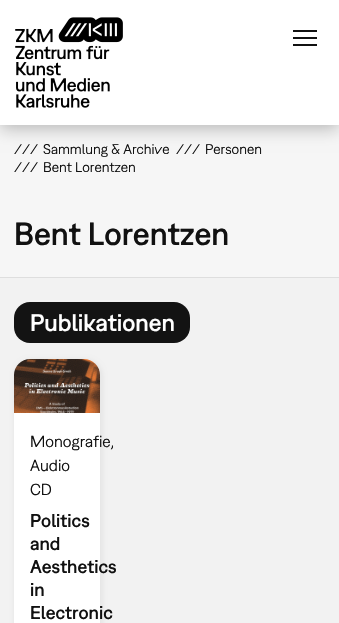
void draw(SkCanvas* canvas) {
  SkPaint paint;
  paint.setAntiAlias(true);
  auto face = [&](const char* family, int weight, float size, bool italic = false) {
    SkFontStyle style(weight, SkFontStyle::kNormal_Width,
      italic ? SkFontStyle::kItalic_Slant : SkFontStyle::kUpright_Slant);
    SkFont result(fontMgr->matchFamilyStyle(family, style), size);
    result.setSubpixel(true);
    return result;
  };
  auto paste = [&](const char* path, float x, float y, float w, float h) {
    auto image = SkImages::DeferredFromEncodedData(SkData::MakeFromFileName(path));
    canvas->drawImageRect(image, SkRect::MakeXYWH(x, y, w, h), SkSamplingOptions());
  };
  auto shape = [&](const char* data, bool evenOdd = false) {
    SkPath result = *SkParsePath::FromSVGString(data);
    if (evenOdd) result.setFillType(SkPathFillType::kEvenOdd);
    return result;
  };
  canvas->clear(0xfff6f6f6);
  paint.setColor(0x40000000);
  paint.setMaskFilter(SkMaskFilter::MakeBlur(kNormal_SkBlurStyle, 8));
  canvas->drawRect(SkRect::MakeXYWH(0, 4, 339, 125), paint);
  paint.setMaskFilter(nullptr);
  paint.setColor(0xffffffff);
  canvas->drawRect(SkRect::MakeXYWH(0, 0, 339, 125), paint);
  paste("img/1.png", 15, 17, 108, 91);
  {
    const struct { float x, y, w, h; SkColor color; } items[] = {
      {293, 30, 24, 2, 0xff111111},
      {293, 37, 24, 2, 0xff111111},
      {293, 44, 24, 2, 0xff111111},
      {0, 278, 339, 345, 0xfff2f2f2},
      {0, 277, 339, 1, 0xffdedede},
    };
    for (auto [x, y, w, h, color] : items) {
      paint.setColor(color);
      canvas->drawRect(SkRect::MakeXYWH(x, y, w, h), paint);
    }
  }
  paint.setColor(0xff131313);
  canvas->drawRoundRect(SkRect::MakeXYWH(14, 302, 176, 41), 16, 16, paint);
  paint.setColor(0x0d000000);
  paint.setMaskFilter(SkMaskFilter::MakeBlur(kNormal_SkBlurStyle, 2));
  canvas->drawRoundRect(SkRect::MakeXYWH(14, 359, 89, 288), 18, 18, paint);
  paint.setMaskFilter(nullptr);
  paint.setColor(0xffffffff);
  canvas->drawRoundRect(SkRect::MakeXYWH(14, 359, 86, 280), 16, 16, paint);
  canvas->drawPath(shape("M30 359H84C93 359 100 366 100 375V413H14V375C14 366 21 359 30 359Z"), paint);
  paste("img/2.png", 14, 359, 86, 54);
  auto f0 = face("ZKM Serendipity", 400, 14);
  paint.setColor(0xff111111);
  {
    const struct { const char* s; float x, y; } items[] = {
      {"///", 14, 154},
      {"Sammlung & Archive", 43, 154},
      {"///", 176, 154},
      {"Personen", 205, 154},
      {"///", 14, 172},
      {"Bent Lorentzen", 43, 172},
    };
    for (auto [s, x, y] : items) {
      canvas->drawString(s, x, y, f0, paint);
    }
  }
  auto f1 = face("ZKM Serendipity", 500, 32);
  canvas->drawString("Bent Lorentzen", 14, 245, f1, paint);
  auto f2 = face("ZKM Serendipity", 500, 24);
  paint.setColor(0xffffffff);
  canvas->drawString("Publikationen", 30, 331, f2, paint);
  auto f3 = face("ZKM Serendipity", 400, 16);
  paint.setColor(0xff111111);
  {
    const struct { const char* s; float x, y; } items[] = {
      {"Monografie,", 30, 447},
      {"Audio", 30, 471},
      {"CD", 30, 495},
    };
    for (auto [s, x, y] : items) {
      canvas->drawString(s, x, y, f3, paint);
    }
  }
  auto f4 = face("ZKM Serendipity", 500, 18.5f);
  {
    const struct { const char* s; float x, y; } items[] = {
      {"Politics", 30, 527},
      {"and", 30, 550},
      {"Aesthetics", 30, 573},
      {"in", 30, 596},
      {"Electronic", 30, 619},
    };
    for (auto [s, x, y] : items) {
      canvas->drawString(s, x, y, f4, paint);
    }
  }
}
